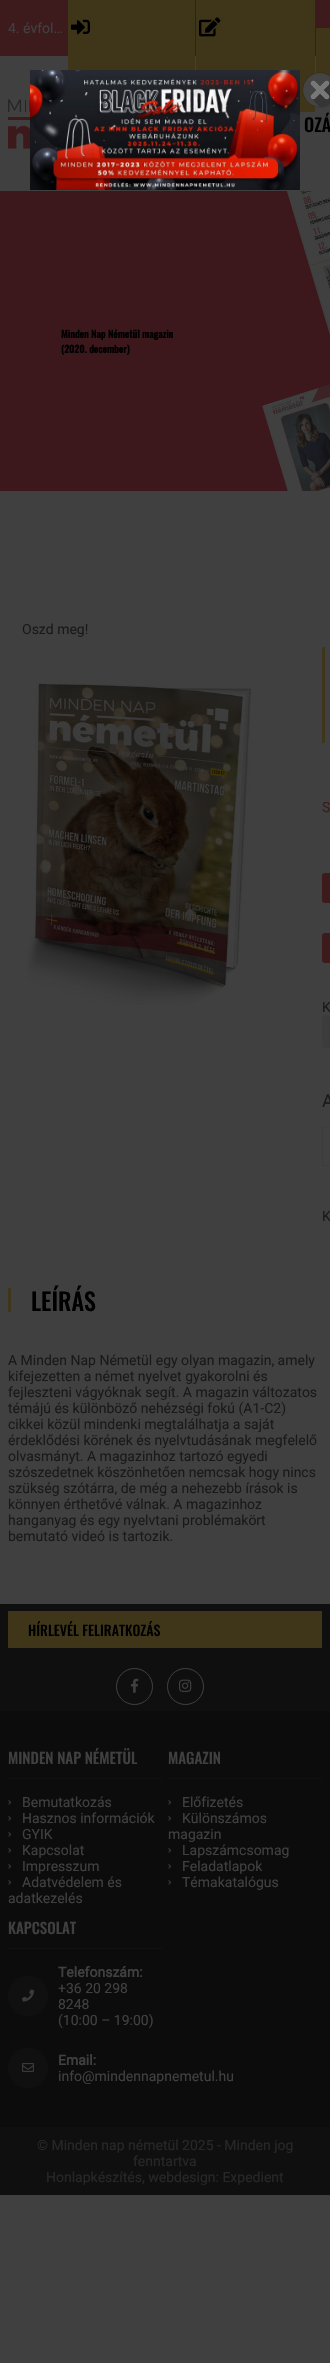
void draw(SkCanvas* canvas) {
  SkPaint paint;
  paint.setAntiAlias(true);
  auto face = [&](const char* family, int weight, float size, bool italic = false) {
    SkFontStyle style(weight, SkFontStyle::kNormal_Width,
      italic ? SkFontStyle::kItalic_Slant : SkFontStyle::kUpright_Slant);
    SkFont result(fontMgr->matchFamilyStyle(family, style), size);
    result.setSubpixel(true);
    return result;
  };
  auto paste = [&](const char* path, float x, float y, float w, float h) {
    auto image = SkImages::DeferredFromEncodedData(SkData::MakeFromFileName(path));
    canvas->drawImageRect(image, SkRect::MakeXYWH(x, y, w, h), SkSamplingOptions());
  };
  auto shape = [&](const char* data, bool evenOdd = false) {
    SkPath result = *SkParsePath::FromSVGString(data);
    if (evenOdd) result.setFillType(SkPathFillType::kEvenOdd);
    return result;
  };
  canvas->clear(0xff404040);
  paint.setColor(0xff3d1a1c);
  canvas->drawRect(SkRect::MakeXYWH(0, 0, 330, 56), paint);
  paint.setColor(0xff3f361a);
  canvas->drawRect(SkRect::MakeXYWH(68, 0, 127, 70), paint);
  paste("img/1.png", 71, 19, 19, 16);
  canvas->drawRect(SkRect::MakeXYWH(196, 0, 119, 112), paint);
  paste("img/2.png", 199, 17, 22, 20);
  canvas->drawRect(SkRect::MakeXYWH(316, 28, 14, 49), paint);
  paste("img/3.png", 8, 99, 22, 50);
  paste("img/6.png", 30, 189, 270, 1);
  paste("img/4.png", 30, 70, 270, 120);
  paste("img/5.png", 302, 72, 28, 36);
  paint.setColor(0xff3c181d);
  canvas->drawRect(SkRect::MakeXYWH(0, 191, 262, 300), paint);
  paste("img/7.png", 262, 191, 68, 300);
  paste("img/8.png", 27, 683, 225, 322);
  paint.setColor(0xff3f361a);
  canvas->drawRect(SkRect::MakeXYWH(322, 647, 3, 96), paint);
  paint.setColor(0xff3d1a1c);
  canvas->drawRoundRect(SkRect::MakeXYWH(322, 873, 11, 30), 3, 3, paint);
  canvas->drawRoundRect(SkRect::MakeXYWH(322, 933, 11, 30), 3, 3, paint);
  paint.setColor(0xff3c3c3c);
  canvas->drawRoundRect(SkRect::MakeXYWH(322, 1015, 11, 33), 3, 3, paint);
  canvas->drawPath(shape("M325 1126H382V1163C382 1165 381 1166 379 1166H322V1129C322 1127 323 1126 325 1126ZM325 1127H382V1163C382 1164 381 1165 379 1165H323V1129C323 1128 324 1127 325 1127Z", true), paint);
  {
    const struct { float x, y, w, h; SkColor color; } items[] = {
      {8, 1288, 3, 24, 0xff3f361a},
      {0, 1711, 330, 416, 0xff0c0c0c},
      {0, 1604, 330, 107, 0xff0f0f0f},
      {8, 1611, 314, 37, 0xff3f361a},
    };
    for (auto [x, y, w, h, color] : items) {
      paint.setColor(color);
      canvas->drawRect(SkRect::MakeXYWH(x, y, w, h), paint);
    }
  }
  paint.setStroke(true);
  paint.setStrokeWidth(1);
  paint.setColor(0xff404040);
  canvas->drawCircle(134.5f, 1686.5f, 18, paint);
  paste("img/9.png", 131, 1678, 8, 15);
  canvas->drawCircle(185.5f, 1686.5f, 18, paint);
  paste("img/10.png", 179, 1679, 13, 13);
  paint.setStroke(false);
  paint.setColor(0xff111111);
  canvas->drawRect(SkRect::MakeXYWH(8, 1778, 154, 1), paint);
  paste("img/11.png", 8, 1800, 4, 5);
  paste("img/11.png", 8, 1816, 4, 5);
  paste("img/11.png", 8, 1832, 4, 5);
  paste("img/11.png", 8, 1848, 4, 5);
  paste("img/11.png", 8, 1864, 4, 5);
  paste("img/11.png", 8, 1880, 4, 5);
  canvas->drawRect(SkRect::MakeXYWH(168, 1778, 154, 1), paint);
  paste("img/11.png", 168, 1800, 4, 5);
  paste("img/11.png", 168, 1816, 4, 5);
  paste("img/11.png", 168, 1848, 4, 5);
  paste("img/11.png", 168, 1864, 4, 5);
  paste("img/11.png", 168, 1880, 4, 5);
  canvas->drawRect(SkRect::MakeXYWH(8, 1948, 154, 1), paint);
  paint.setColor(0xff101010);
  canvas->drawCircle(28, 1996, 20, paint);
  paste("img/12.png", 22, 1989, 12, 13);
  canvas->drawCircle(28, 2068, 20, paint);
  paste("img/13.png", 22, 2063, 12, 9);
  paint.setColor(0xff0f0f0f);
  canvas->drawRect(SkRect::MakeXYWH(0, 2127, 330, 68), paint);
  auto f0 = face("Roboto", 400, 14);
  paint.setColor(0xff404040);
  canvas->drawString("4. évfol…", 8, 33, f0, paint);
  auto f1 = face("Oswald", 500, 18);
  paint.setColor(0xff000000);
  canvas->drawString("OZÁ", 304, 132, f1, paint);
  auto f2 = face("Oswald", 700, 9.9f);
  canvas->drawString("Minden Nap Németül magazin", 61, 338, f2, paint);
  canvas->drawString("(2020. december)", 61, 353, f2, paint);
  paint.setColor(0xff191919);
  canvas->drawString("Oszd meg!", 22, 634, f0, paint);
  paint.setColor(0xff3d1a1c);
  canvas->drawString("S", 322, 812, f0, paint);
  paint.setColor(0xff191919);
  canvas->drawString("K", 322, 1012, f0, paint);
  auto f3 = face("Roboto", 400, 18);
  canvas->drawString("A", 322, 1107, f3, paint);
  canvas->drawString("K", 322, 1221, f0, paint);
  auto f4 = face("Oswald", 500, 24);
  paint.setColor(0xff000000);
  canvas->drawString("LEÍRÁS", 31, 1311, f4, paint);
  paint.setColor(0xff191919);
  {
    const struct { const char* s; float x, y; } items[] = {
      {"A Minden Nap Németül egy olyan magazin, amely", 8, 1365},
      {"kifejezetten a német nyelvet gyakorolni és", 8, 1381},
      {"fejleszteni vágyóknak segít. A magazin változatos", 8, 1397},
      {"témájú és különböző nehézségi fokú (A1-C2)", 8, 1413},
      {"cikkei közül mindenki megtalálhatja a saját", 8, 1429},
      {"érdeklődési körének és nyelvtudásának megfelelő", 8, 1445},
      {"olvasmányt. A magazinhoz tartozó egyedi", 8, 1461},
      {"szószedetnek köszönhetően nemcsak hogy nincs", 8, 1477},
      {"szükség szótárra, de még a nehezebb írások is", 8, 1493},
      {"könnyen érthetővé válnak. A magazinhoz", 8, 1509},
      {"hanganyag és egy nyelvtani problémakört", 8, 1525},
      {"bemutató videó is tartozik.", 8, 1541},
    };
    for (auto [s, x, y] : items) {
      canvas->drawString(s, x, y, f0, paint);
    }
  }
  auto f5 = face("Oswald", 500, 14);
  paint.setColor(0xff000000);
  canvas->drawString("HÍRLEVÉL FELIRATKOZÁS", 28, 1636, f5, paint);
  auto f6 = face("Oswald", 500, 15);
  paint.setColor(0xff404040);
  canvas->drawString("MINDEN NAP NÉMETÜL", 8, 1764, f6, paint);
  {
    const struct { const char* s; float x, y; } items[] = {
      {"Bemutatkozás", 22, 1807},
      {"Hasznos információk", 22, 1823},
      {"GYIK", 22, 1839},
      {"Kapcsolat", 22, 1855},
      {"Impresszum", 22, 1871},
      {"Adatvédelem és", 22, 1887},
      {"adatkezelés", 8, 1903},
    };
    for (auto [s, x, y] : items) {
      canvas->drawString(s, x, y, f0, paint);
    }
  }
  canvas->drawString("MAGAZIN", 168, 1764, f6, paint);
  {
    const struct { const char* s; float x, y; } items[] = {
      {"Előfizetés", 182, 1807},
      {"Különszámos", 182, 1823},
      {"magazin", 168, 1839},
      {"Lapszámcsomag", 182, 1855},
      {"Feladatlapok", 182, 1871},
      {"Témakatalógus", 182, 1887},
    };
    for (auto [s, x, y] : items) {
      canvas->drawString(s, x, y, f0, paint);
    }
  }
  canvas->drawString("KAPCSOLAT", 8, 1934, f6, paint);
  auto f7 = face("Roboto", 700, 14);
  canvas->drawString("Telefonszám:", 58, 1977, f7, paint);
  {
    const struct { const char* s; float x, y; } items[] = {
      {"+36 20 298", 58, 1993},
      {"8248", 58, 2009},
      {"(10:00 – 19:00)", 58, 2025},
    };
    for (auto [s, x, y] : items) {
      canvas->drawString(s, x, y, f0, paint);
    }
  }
  canvas->drawString("Email:", 58, 2065, f7, paint);
  canvas->drawString("info@mindennapnemetul.hu", 58, 2081, f0, paint);
  paint.setColor(0xff272727);
  {
    const struct { const char* s; float x, y; } items[] = {
      {"© Minden nap németül 2025 - Minden jog", 37, 2150},
      {"fenntartva", 133, 2166},
      {"Honlapkészítés, webdesign: Expedient", 46, 2182},
    };
    for (auto [s, x, y] : items) {
      canvas->drawString(s, x, y, f0, paint);
    }
  }
}
